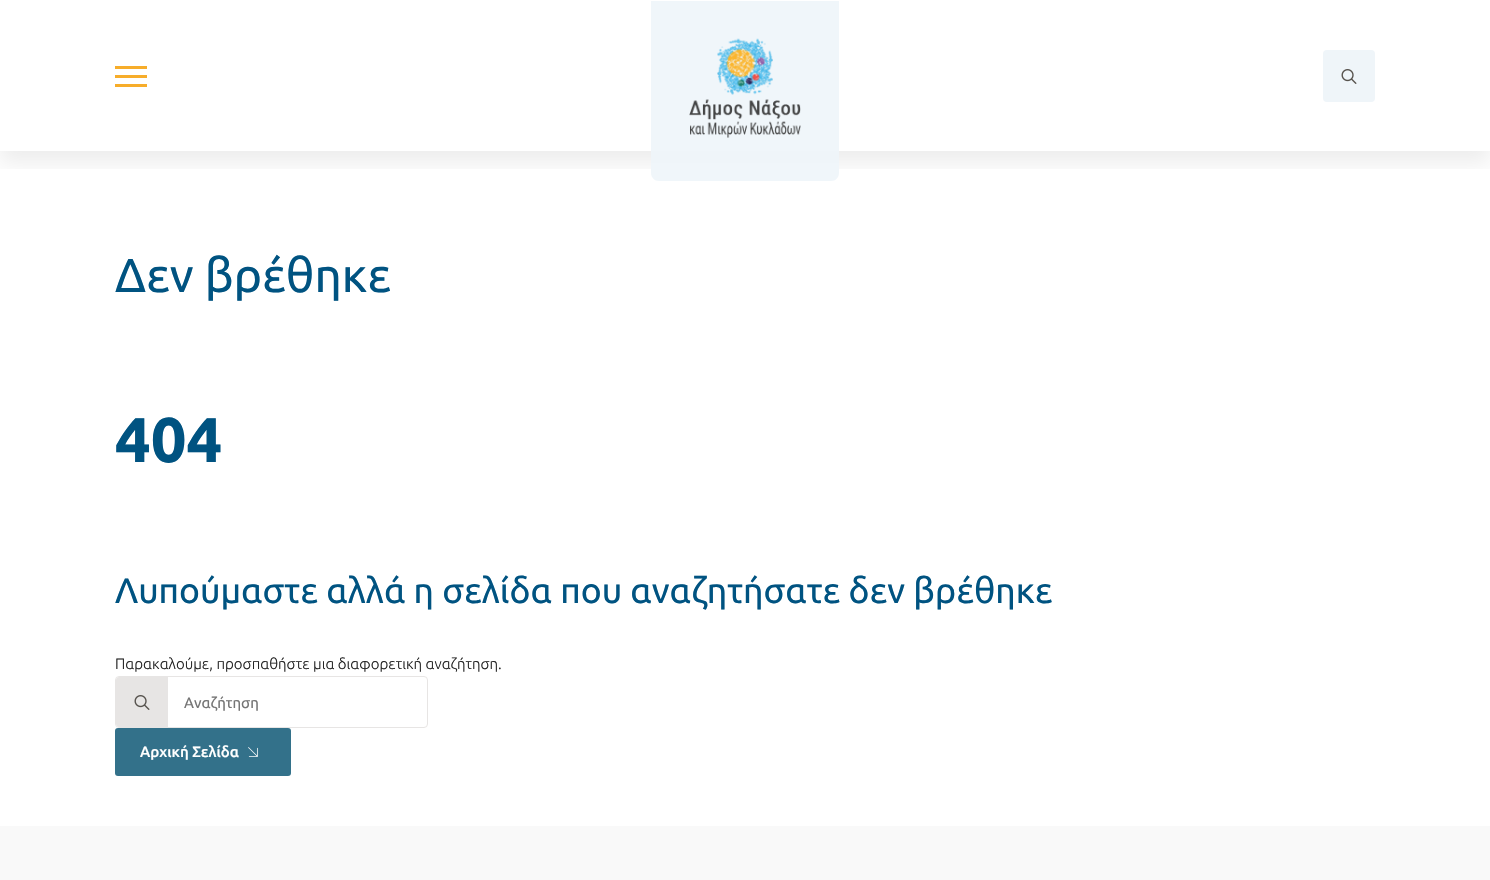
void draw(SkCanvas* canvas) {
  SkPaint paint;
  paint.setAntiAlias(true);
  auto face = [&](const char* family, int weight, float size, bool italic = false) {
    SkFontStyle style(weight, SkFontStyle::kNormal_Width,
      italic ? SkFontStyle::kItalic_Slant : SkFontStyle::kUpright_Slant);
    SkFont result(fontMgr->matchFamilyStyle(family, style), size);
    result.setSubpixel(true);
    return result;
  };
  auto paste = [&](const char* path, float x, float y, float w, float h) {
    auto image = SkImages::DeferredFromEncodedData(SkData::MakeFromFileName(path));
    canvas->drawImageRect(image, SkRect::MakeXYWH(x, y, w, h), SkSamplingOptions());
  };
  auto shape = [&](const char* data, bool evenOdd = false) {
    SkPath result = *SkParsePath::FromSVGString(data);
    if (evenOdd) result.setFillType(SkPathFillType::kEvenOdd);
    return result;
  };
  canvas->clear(0xffffffff);
  canvas->save();
  canvas->clipRect(SkRect::MakeXYWH(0, 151, 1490, 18));
  paint.setColor(0x12000000);
  paint.setMaskFilter(SkMaskFilter::MakeBlur(kNormal_SkBlurStyle, 10));
  canvas->drawRect(SkRect::MakeXYWH(0, 12, 1490, 151), paint);
  paint.setMaskFilter(nullptr);
  canvas->restore();
  {
    const struct { float x, y, w, h; SkColor color; } items[] = {
      {115, 66, 32, 3, 0xfff7ad2a},
      {115, 75, 32, 3, 0xfff7ad2a},
      {115, 84, 32, 3, 0xfff7ad2a},
    };
    for (auto [x, y, w, h, color] : items) {
      paint.setColor(color);
      canvas->drawRect(SkRect::MakeXYWH(x, y, w, h), paint);
    }
  }
  paint.setColor(0xe6eef5f9);
  canvas->drawPath(shape("M651 1H839V173C839 177.5 835.5 181 831 181H659C654.5 181 651 177.5 651 173Z"), paint);
  paste("img/1.png", 689, 38, 112, 100);
  paint.setColor(0xffeff5f9);
  canvas->drawRoundRect(SkRect::MakeXYWH(1323, 50, 52, 52), 4, 4, paint);
  paste("img/2.png", 1341, 69, 16, 15);
  paint.setStroke(true);
  paint.setStrokeWidth(1);
  paint.setColor(0xffe7e5e4);
  canvas->drawRoundRect(SkRect::MakeXYWH(115.5f, 676.5f, 312, 51), 3.5f, 3.5f, paint);
  paint.setStroke(false);
  canvas->drawPath(shape("M119 677H168V727H119C117.5 727 116 725.5 116 724V680C116 678.5 117.5 677 119 677Z"), paint);
  paste("img/3.png", 134, 695, 16, 15);
  paint.setColor(0xff33718a);
  canvas->drawRoundRect(SkRect::MakeXYWH(115, 728, 176, 48), 3, 3, paint);
  paste("img/4.png", 248, 747, 10, 10);
  paint.setColor(0xfff9f9f9);
  canvas->drawRect(SkRect::MakeXYWH(0, 826, 1490, 54), paint);
  auto f0 = face("Ubuntu", 400, 47.5f);
  paint.setColor(0xff005381);
  canvas->drawString("Δεν βρέθηκε", 115, 292, f0, paint);
  auto f1 = face("Ubuntu", 700, 63);
  canvas->drawString("404", 115, 462, f1, paint);
  auto f2 = face("Ubuntu", 400, 35.5f);
  canvas->drawString("Λυπούμαστε αλλά η σελίδα που αναζητήσατε δεν βρέθηκε", 115, 603, f2, paint);
  auto f3 = face("Ubuntu", 300, 15);
  paint.setColor(0xff232323);
  canvas->drawString("Παρακαλούμε, προσπαθήστε μια διαφορετική αναζήτηση.", 115, 669, f3, paint);
  auto f4 = face("Ubuntu", 400, 15);
  paint.setColor(0xff757575);
  canvas->drawString("Αναζήτηση", 184, 708, f4, paint);
  auto f5 = face("Ubuntu", 500, 15);
  paint.setColor(0xffffffff);
  canvas->drawString("Αρχική Σελίδα", 140, 757, f5, paint);
}
